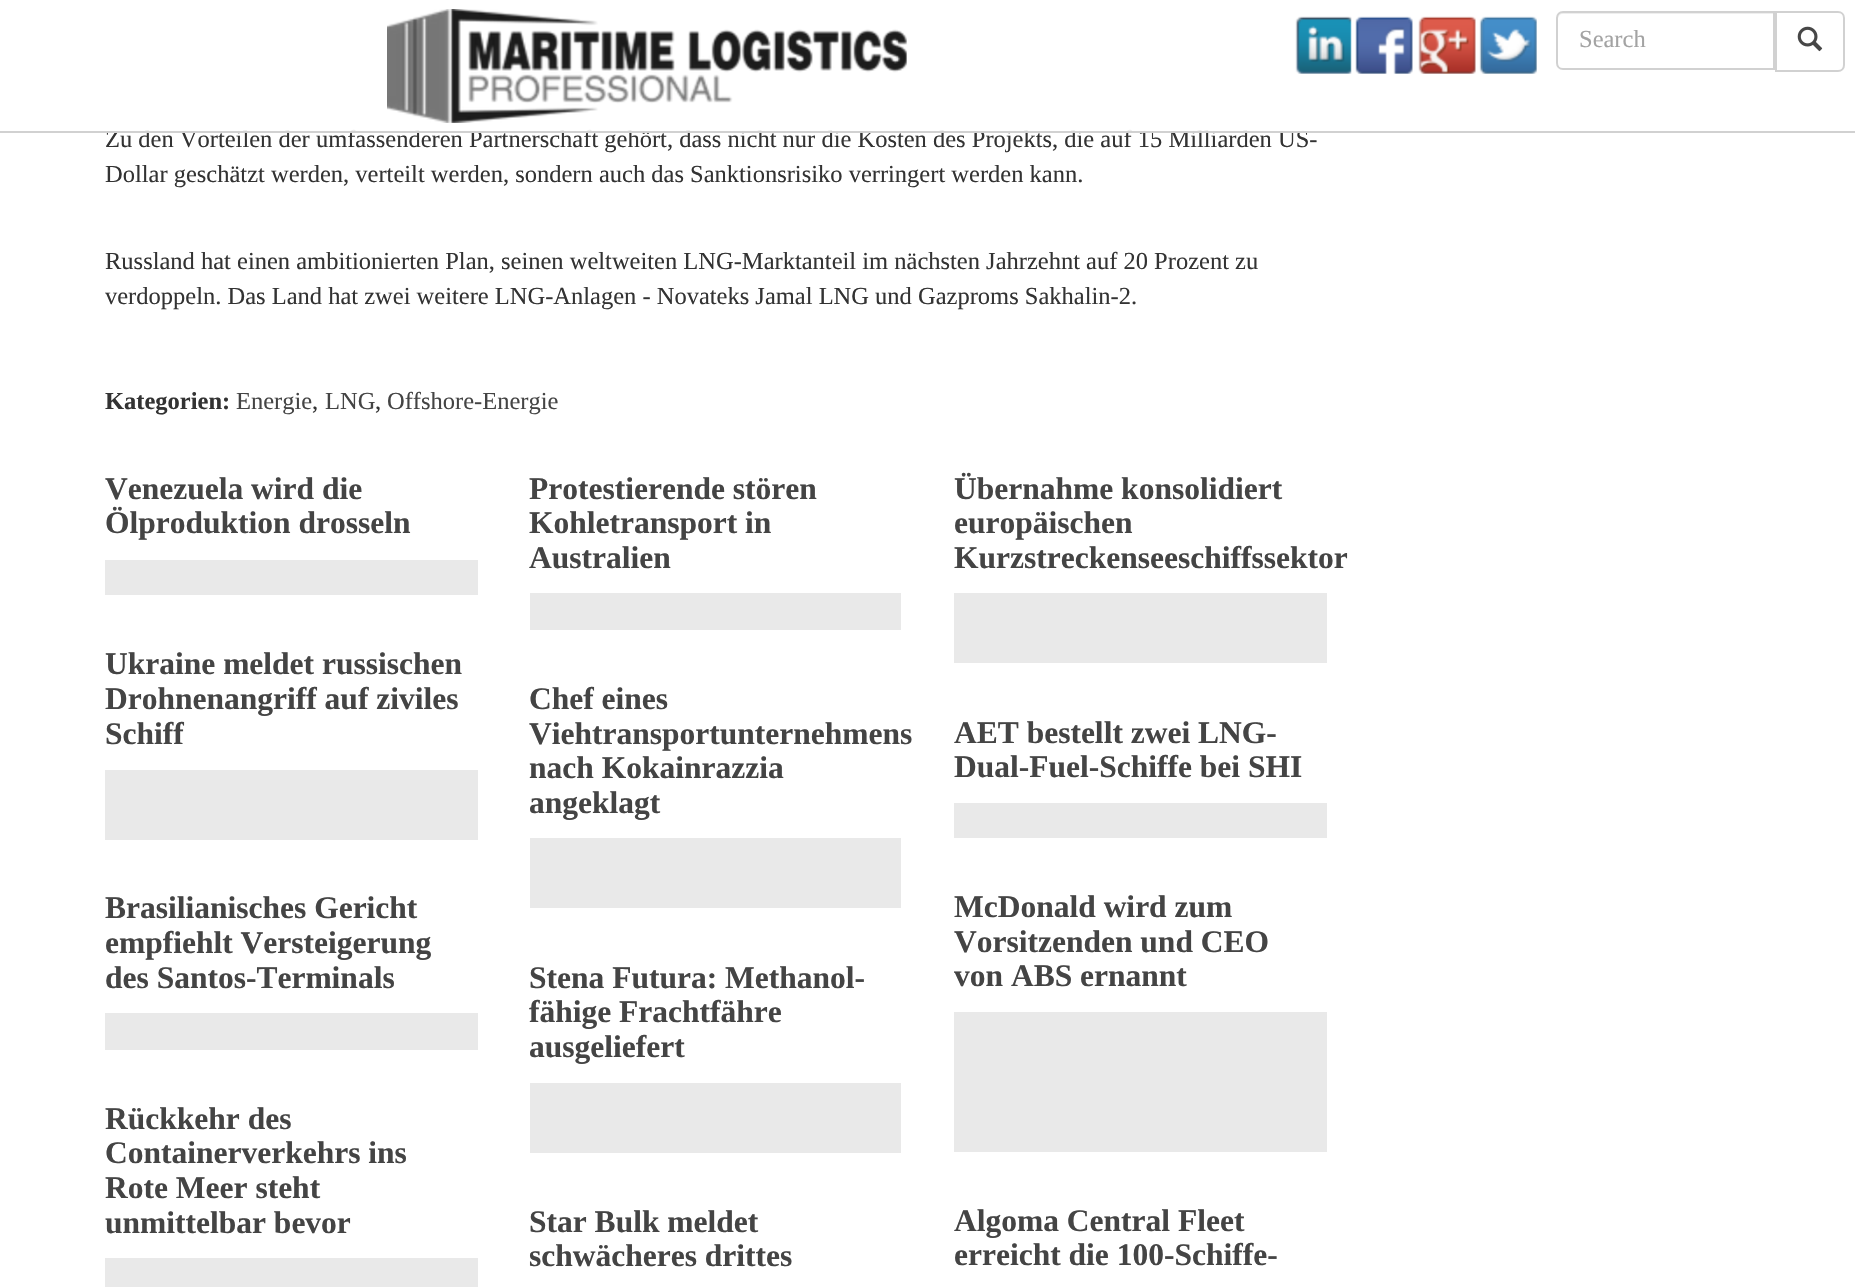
void draw(SkCanvas* canvas) {
  SkPaint paint;
  paint.setAntiAlias(true);
  auto face = [&](const char* family, int weight, float size, bool italic = false) {
    SkFontStyle style(weight, SkFontStyle::kNormal_Width,
      italic ? SkFontStyle::kItalic_Slant : SkFontStyle::kUpright_Slant);
    SkFont result(fontMgr->matchFamilyStyle(family, style), size);
    result.setSubpixel(true);
    return result;
  };
  auto paste = [&](const char* path, float x, float y, float w, float h) {
    auto image = SkImages::DeferredFromEncodedData(SkData::MakeFromFileName(path));
    canvas->drawImageRect(image, SkRect::MakeXYWH(x, y, w, h), SkSamplingOptions());
  };
  auto shape = [&](const char* data, bool evenOdd = false) {
    SkPath result = *SkParsePath::FromSVGString(data);
    if (evenOdd) result.setFillType(SkPathFillType::kEvenOdd);
    return result;
  };
  canvas->clear(0xffffffff);
  paste("img/1.png", 387, 9, 520, 114);
  paste("img/2.png", 1295, 16, 57, 58);
  paste("img/3.png", 1355, 16, 58, 58);
  paste("img/4.png", 1418, 16, 58, 58);
  paste("img/5.png", 1479, 16, 58, 58);
  paint.setColor(0xffeeeeee);
  canvas->drawPath(shape("M1563 14H1773V12H1563C1560 12 1558 14 1558 17V19C1558 16 1560 14 1563 14Z"), paint);
  paint.setStroke(true);
  paint.setStrokeWidth(2);
  paint.setColor(0xffd1d1d1);
  canvas->drawPath(shape("M1563 12H1774V69H1563C1559.5 69 1557 66.5 1557 63V18C1557 14.5 1559.5 12 1563 12Z"), paint);
  canvas->drawPath(shape("M1776 12H1838C1841.5 12 1844 14.5 1844 18V65C1844 68.5 1841.5 71 1838 71H1776Z"), paint);
  paste("img/6.png", 1797, 26, 26, 26);
  paint.setStroke(false);
  {
    const struct { float x, y, w, h; SkColor color; } items[] = {
      {105, 560, 373, 35, 0xffe9e9e9},
      {105, 770, 373, 70, 0xffe9e9e9},
      {105, 1013, 373, 37, 0xffe9e9e9},
      {105, 1258, 373, 29, 0xffe9e9e9},
      {530, 593, 371, 37, 0xffe9e9e9},
      {530, 838, 371, 70, 0xffe9e9e9},
      {530, 1083, 371, 70, 0xffe9e9e9},
      {954, 593, 373, 70, 0xffe9e9e9},
      {954, 803, 373, 35, 0xffe9e9e9},
      {954, 1012, 373, 140, 0xffe9e9e9},
    };
    for (auto [x, y, w, h, color] : items) {
      paint.setColor(color);
      canvas->drawRect(SkRect::MakeXYWH(x, y, w, h), paint);
    }
  }
  auto f0 = face("Liberation Serif", 400, 24.5f);
  paint.setColor(0xffa3a3a3);
  canvas->drawString("Search", 1579, 47, f0, paint);
  paint.setColor(0xff333333);
  canvas->drawString("Zu den Vorteilen der umfassenderen Partnerschaft gehört, dass nicht nur die Kosten des Projekts, die auf 15 Milliarden US-", 105, 147, f0, paint);
  paint.setColor(0xe6ffffff);
  canvas->drawRect(SkRect::MakeXYWH(106, 129, 1201, 4), paint);
  paint.setColor(0xe6cccccc);
  canvas->drawRect(SkRect::MakeXYWH(0, 131, 1855, 2), paint);
  paint.setColor(0xff333333);
  {
    const struct { const char* s; float x, y; } items[] = {
      {"Dollar geschätzt werden, verteilt werden, sondern auch das Sanktionsrisiko verringert werden kann.", 105, 182},
      {"Russland hat einen ambitionierten Plan, seinen weltweiten LNG-Marktanteil im nächsten Jahrzehnt auf 20 Prozent zu", 105, 269},
      {"verdoppeln. Das Land hat zwei weitere LNG-Anlagen - Novateks Jamal LNG und Gazproms Sakhalin-2.", 105, 304},
    };
    for (auto [s, x, y] : items) {
      canvas->drawString(s, x, y, f0, paint);
    }
  }
  auto f1 = face("Liberation Serif", 700, 24.5f);
  canvas->drawString("Kategorien:", 105, 409, f1, paint);
  paint.setColor(0xff444444);
  canvas->drawString("Energie", 236, 409, f0, paint);
  paint.setColor(0xff333333);
  canvas->drawString(",", 312, 409, f0, paint);
  paint.setColor(0xff444444);
  canvas->drawString("LNG", 325, 409, f0, paint);
  paint.setColor(0xff333333);
  canvas->drawString(",", 375, 409, f0, paint);
  paint.setColor(0xff444444);
  canvas->drawString("Offshore-Energie", 387, 409, f0, paint);
  auto f2 = face("Liberation Serif", 700, 31.5f);
  {
    const struct { const char* s; float x, y; } items[] = {
      {"Venezuela wird die", 105, 499},
      {"Ölproduktion drosseln", 105, 533},
      {"Ukraine meldet russischen", 105, 674},
      {"Drohnenangriff auf ziviles", 105, 709},
      {"Schiff", 105, 744},
      {"Brasilianisches Gericht", 105, 918},
      {"empfiehlt Versteigerung", 105, 953},
      {"des Santos-Terminals", 105, 988},
      {"Rückkehr des", 105, 1129},
      {"Containerverkehrs ins", 105, 1163},
      {"Rote Meer steht", 105, 1198},
      {"unmittelbar bevor", 105, 1233},
      {"Protestierende stören", 529, 499},
      {"Kohletransport in", 529, 533},
      {"Australien", 529, 568},
      {"Chef eines", 529, 709},
      {"Viehtransportunternehmens", 529, 744},
      {"nach Kokainrazzia", 529, 778},
      {"angeklagt", 529, 813},
      {"Stena Futura: Methanol-", 529, 988},
      {"fähige Frachtfähre", 529, 1022},
      {"ausgeliefert", 529, 1057},
      {"Star Bulk meldet", 529, 1232},
      {"schwächeres drittes", 529, 1266},
      {"Übernahme konsolidiert", 954, 499},
      {"europäischen", 954, 533},
      {"Kurzstreckenseeschiffssektor", 954, 568},
      {"AET bestellt zwei LNG-", 954, 743},
      {"Dual-Fuel-Schiffe bei SHI", 954, 777},
      {"McDonald wird zum", 954, 917},
      {"Vorsitzenden und CEO", 954, 952},
      {"von ABS ernannt", 954, 986},
      {"Algoma Central Fleet", 954, 1231},
      {"erreicht die 100-Schiffe-", 954, 1265},
    };
    for (auto [s, x, y] : items) {
      canvas->drawString(s, x, y, f2, paint);
    }
  }
}
